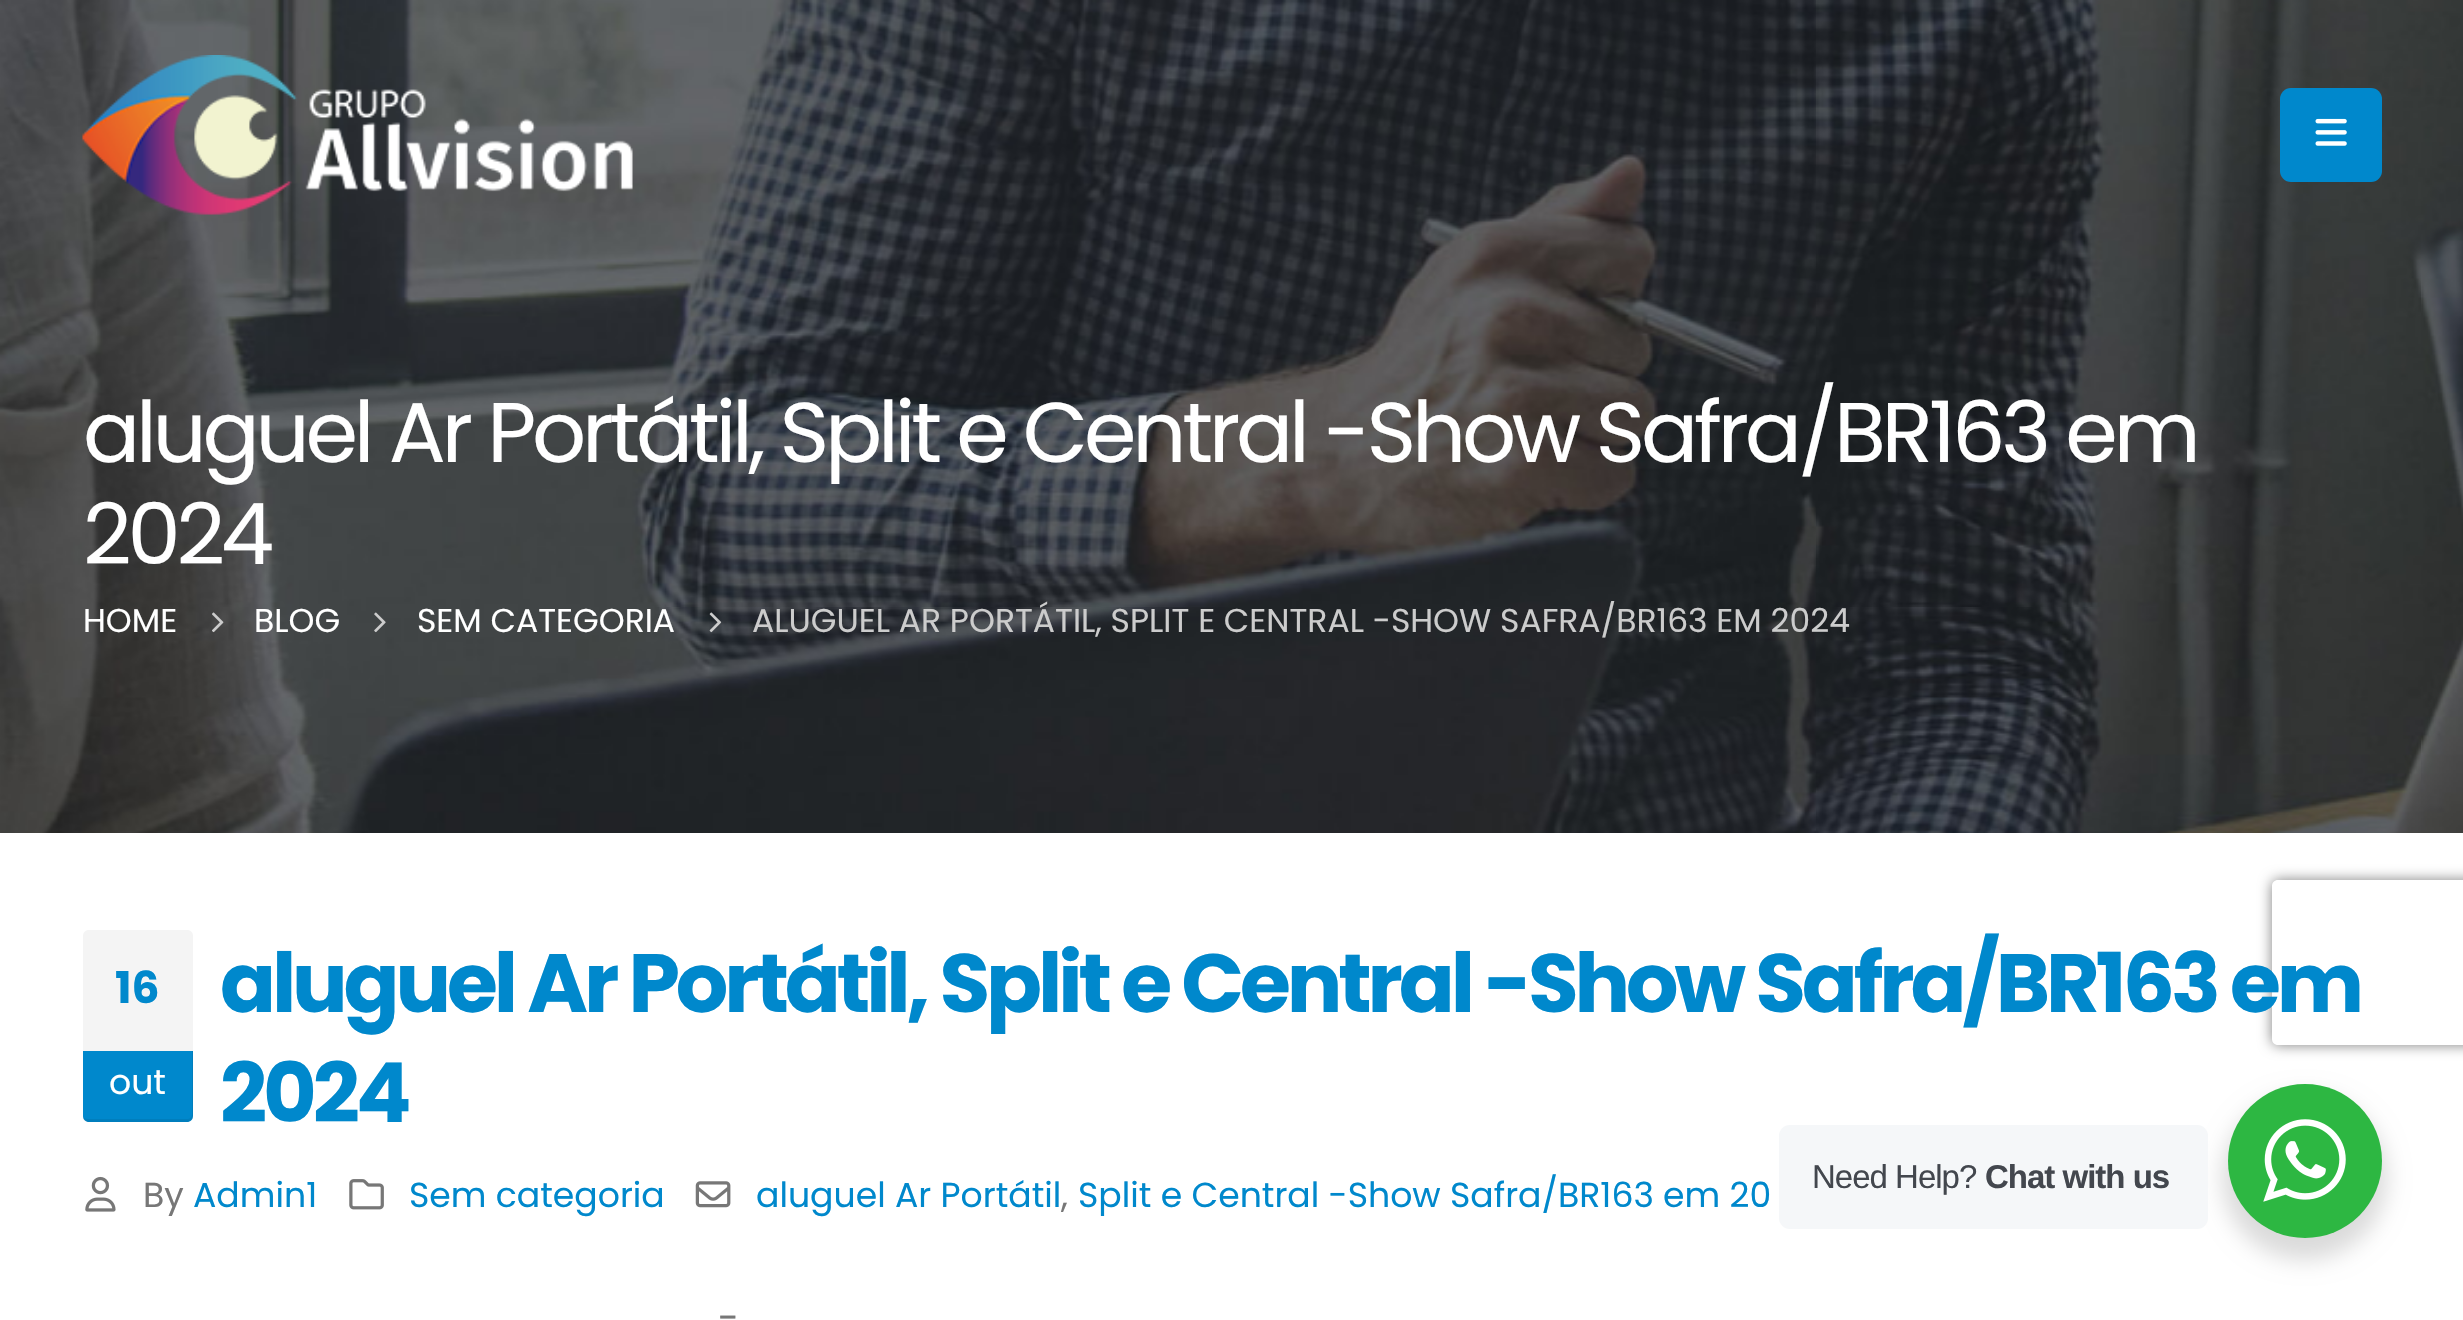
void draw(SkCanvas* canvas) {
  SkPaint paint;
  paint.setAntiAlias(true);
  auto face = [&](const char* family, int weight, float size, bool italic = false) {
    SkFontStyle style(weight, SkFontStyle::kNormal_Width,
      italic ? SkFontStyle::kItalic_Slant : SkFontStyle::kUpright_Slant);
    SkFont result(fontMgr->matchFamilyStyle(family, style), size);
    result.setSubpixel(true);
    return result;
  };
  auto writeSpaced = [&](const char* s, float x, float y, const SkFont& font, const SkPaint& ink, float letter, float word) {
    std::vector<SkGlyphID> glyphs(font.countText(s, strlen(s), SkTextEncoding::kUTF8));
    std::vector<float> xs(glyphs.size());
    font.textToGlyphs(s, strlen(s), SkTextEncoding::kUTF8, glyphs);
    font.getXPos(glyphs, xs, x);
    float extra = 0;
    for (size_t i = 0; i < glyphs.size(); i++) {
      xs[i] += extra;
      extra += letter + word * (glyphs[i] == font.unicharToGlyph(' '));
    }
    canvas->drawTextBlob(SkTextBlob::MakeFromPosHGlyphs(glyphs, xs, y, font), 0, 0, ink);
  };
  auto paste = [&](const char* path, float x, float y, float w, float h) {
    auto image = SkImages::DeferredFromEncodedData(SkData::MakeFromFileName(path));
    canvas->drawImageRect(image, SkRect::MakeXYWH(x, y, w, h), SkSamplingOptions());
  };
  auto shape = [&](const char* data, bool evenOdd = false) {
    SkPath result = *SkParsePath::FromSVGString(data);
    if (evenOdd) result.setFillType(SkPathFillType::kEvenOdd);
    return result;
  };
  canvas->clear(0xffffffff);
  paste("img/3.png", 2462, 0, 1, 833);
  paste("img/4.png", 0, 0, 2463, 833);
  paste("img/1.png", 82, 55, 551, 160);
  paint.setColor(0xff0088cc);
  canvas->drawRoundRect(SkRect::MakeXYWH(2280, 88, 102, 94), 11, 11, paint);
  paste("img/2.png", 2315, 118, 32, 28);
  paste("img/5.png", 212, 612, 12, 21);
  paste("img/6.png", 374, 612, 12, 21);
  paste("img/7.png", 709, 612, 13, 21);
  paint.setColor(0xfff4f4f4);
  canvas->drawPath(shape("M89 930H187C190.5 930 193 932.5 193 936V1051H83V936C83 932.5 85.5 930 89 930Z"), paint);
  paint.setColor(0xff0088cc);
  canvas->drawPath(shape("M83 1051H193V1116C193 1119.5 190.5 1122 187 1122H89C85.5 1122 83 1119.5 83 1116Z"), paint);
  paint.setColor(0x12000000);
  canvas->drawPath(shape("M83 1117C83 1120 86 1122 89 1122H187C190 1122 193 1119 193 1116V1051H192V1114C192 1117 190 1119 187 1119H88C86 1119 84 1118 83 1117Z"), paint);
  paste("img/8.png", 85, 1176, 31, 36);
  paste("img/9.png", 349, 1179, 35, 31);
  paste("img/10.png", 695, 1181, 36, 27);
  canvas->save();
  canvas->clipPath(shape("M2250 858H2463V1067H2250ZM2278 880H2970C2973.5 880 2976 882.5 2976 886V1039C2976 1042.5 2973.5 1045 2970 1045H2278C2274.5 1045 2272 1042.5 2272 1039V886C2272 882.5 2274.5 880 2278 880Z", true), true);
  paint.setColor(0xff808080);
  paint.setMaskFilter(SkMaskFilter::MakeBlur(kNormal_SkBlurStyle, 7));
  canvas->drawRoundRect(SkRect::MakeXYWH(2272, 880, 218, 165), 6, 6, paint);
  paint.setMaskFilter(nullptr);
  canvas->restore();
  paint.setColor(0x24000000);
  paint.setMaskFilter(SkMaskFilter::MakeBlur(kNormal_SkBlurStyle, 11));
  canvas->drawRoundRect(SkRect::MakeXYWH(2222, 1095, 165, 165), 82.5f, 82.5f, paint);
  paint.setMaskFilter(nullptr);
  paint.setColor(0xfff5f7f9);
  canvas->drawRoundRect(SkRect::MakeXYWH(1779, 1125, 429, 104), 11, 11, paint);
  paint.setColor(0xff2db742);
  canvas->drawCircle(2305, 1161, 77, paint);
  paste("img/11.png", 2263, 1119, 83, 83);
  auto f0 = face("Poppins", 400, 84.7f);
  paint.setColor(0xffffffff);
  writeSpaced("aluguel Ar Portátil, Split e Central -Show Safra/BR163 em", 83, 462, f0, paint, -4.25f, 0);
  writeSpaced("2024", 83, 564, f0, paint, -4.25f, 0);
  auto f1 = face("Poppins", 400, 33);
  {
    const struct { const char* s; float x, y; } items[] = {
      {"HOME", 83, 632},
      {"BLOG", 254, 632},
      {"SEM CATEGORIA", 417, 632},
    };
    for (auto [s, x, y] : items) {
      canvas->drawString(s, x, y, f1, paint);
    }
  }
  paint.setColor(0xffcccccc);
  canvas->drawString("ALUGUEL AR PORTÁTIL, SPLIT E CENTRAL -SHOW SAFRA/BR163 EM 2024", 752, 632, f1, paint);
  auto f2 = face("Poppins", 700, 44);
  paint.setColor(0xff0088cc);
  canvas->drawString("16", 115, 1003, f2, paint);
  auto f3 = face("Poppins", 400, 34.65f);
  paint.setColor(0xffffffff);
  canvas->drawString("out", 109, 1094, f3, paint);
  auto f4 = face("Poppins", 700, 82.5f);
  paint.setColor(0xff0088cc);
  writeSpaced("aluguel Ar Portátil, Split e Central -Show Safra/BR163 em", 220, 1012, f4, paint, -4.12f, 0);
  writeSpaced("2024", 220, 1122, f4, paint, -4.12f, 0);
  paint.setColor(0xff777777);
  canvas->drawString("By", 143, 1207, f3, paint);
  paint.setColor(0xff0088cc);
  {
    const struct { const char* s; float x, y; } items[] = {
      {"Admin1", 193, 1207},
      {"Sem categoria", 409, 1207},
      {"aluguel Ar Portátil", 756, 1207},
    };
    for (auto [s, x, y] : items) {
      canvas->drawString(s, x, y, f3, paint);
    }
  }
  paint.setColor(0xff777777);
  canvas->drawString(",", 1061, 1207, f3, paint);
  paint.setColor(0xff0088cc);
  canvas->drawString("Split e Central -Show Safra/BR163 em 20", 1078, 1207, f3, paint);
  auto f5 = face("Poppins", 400, 38);
  paint.setColor(0xff777777);
  canvas->drawString("-", 718, 1331, f5, paint);
  auto f6 = face("Liberation Sans", 400, 33);
  paint.setColor(0xff43474e);
  writeSpaced("Need Help?", 1812, 1188, f6, paint, -1, 0);
  auto f7 = face("Liberation Sans", 700, 33);
  writeSpaced("Chat with us", 1985, 1188, f7, paint, -1, 0);
}
